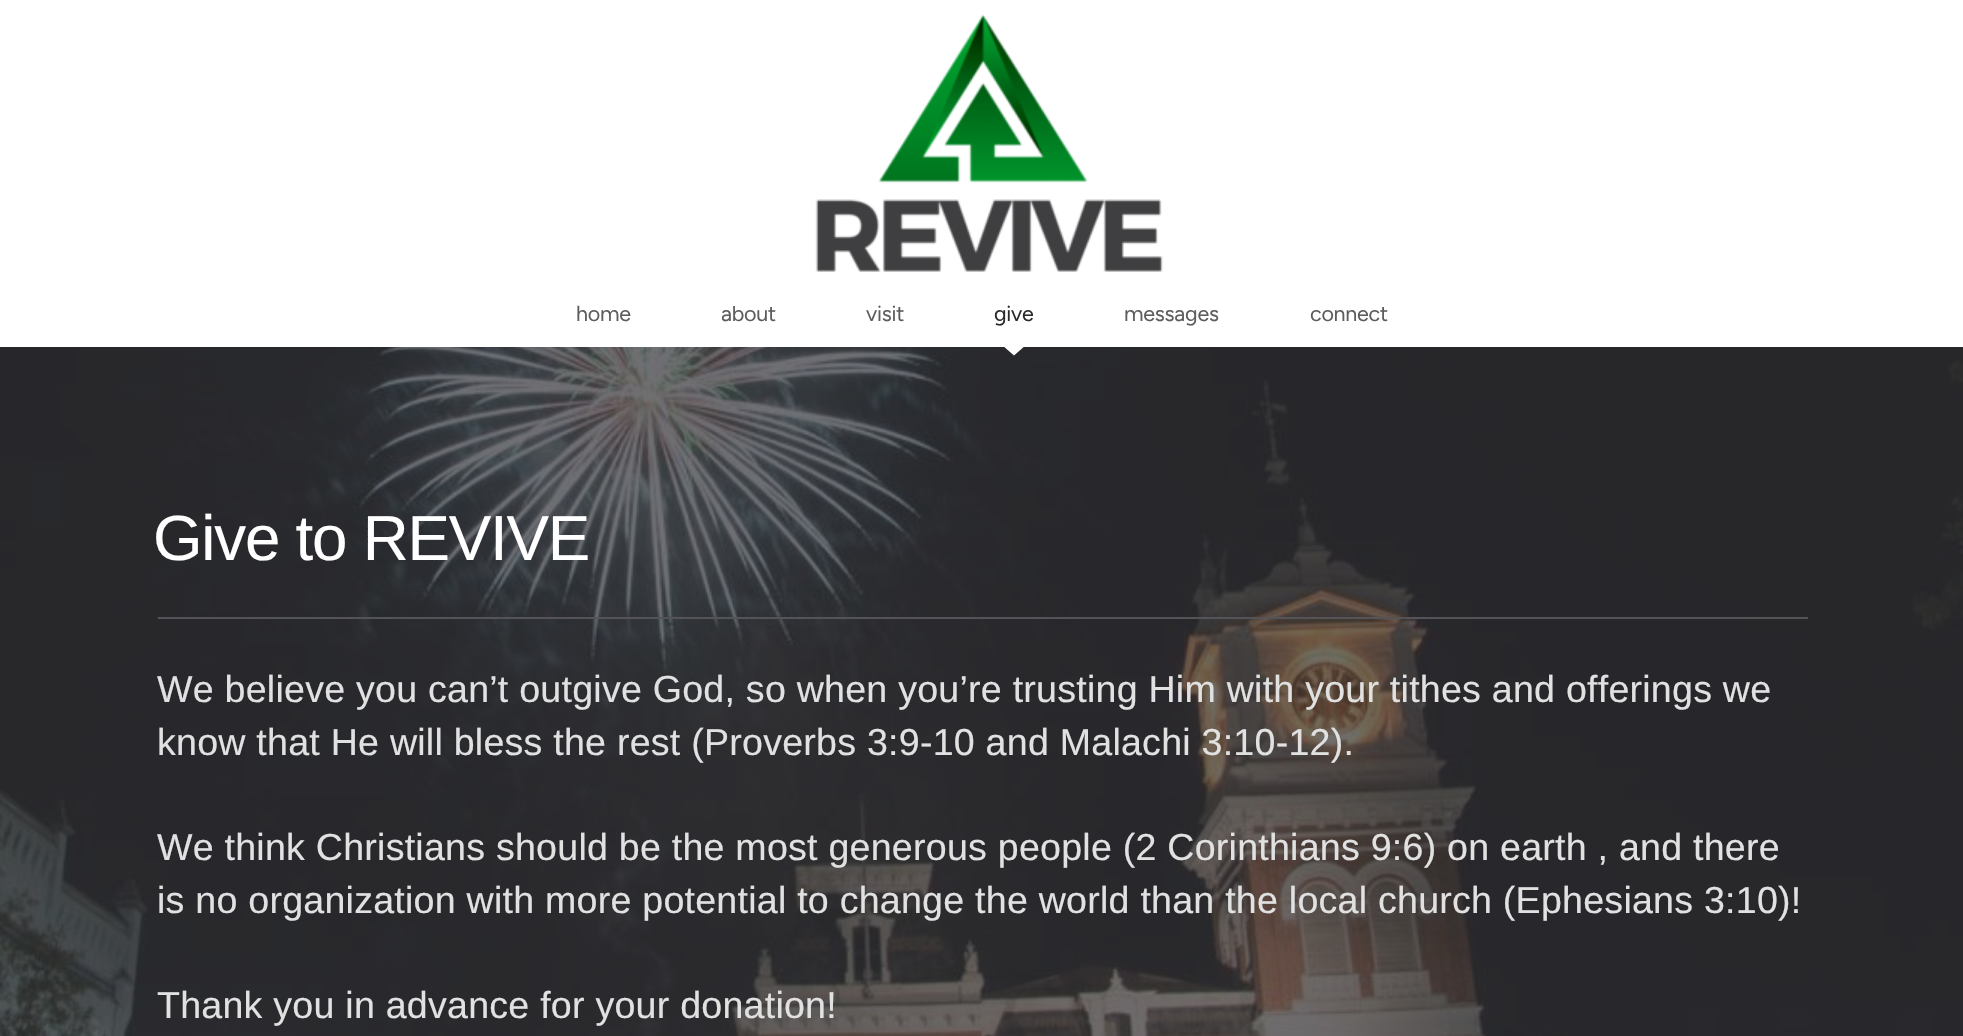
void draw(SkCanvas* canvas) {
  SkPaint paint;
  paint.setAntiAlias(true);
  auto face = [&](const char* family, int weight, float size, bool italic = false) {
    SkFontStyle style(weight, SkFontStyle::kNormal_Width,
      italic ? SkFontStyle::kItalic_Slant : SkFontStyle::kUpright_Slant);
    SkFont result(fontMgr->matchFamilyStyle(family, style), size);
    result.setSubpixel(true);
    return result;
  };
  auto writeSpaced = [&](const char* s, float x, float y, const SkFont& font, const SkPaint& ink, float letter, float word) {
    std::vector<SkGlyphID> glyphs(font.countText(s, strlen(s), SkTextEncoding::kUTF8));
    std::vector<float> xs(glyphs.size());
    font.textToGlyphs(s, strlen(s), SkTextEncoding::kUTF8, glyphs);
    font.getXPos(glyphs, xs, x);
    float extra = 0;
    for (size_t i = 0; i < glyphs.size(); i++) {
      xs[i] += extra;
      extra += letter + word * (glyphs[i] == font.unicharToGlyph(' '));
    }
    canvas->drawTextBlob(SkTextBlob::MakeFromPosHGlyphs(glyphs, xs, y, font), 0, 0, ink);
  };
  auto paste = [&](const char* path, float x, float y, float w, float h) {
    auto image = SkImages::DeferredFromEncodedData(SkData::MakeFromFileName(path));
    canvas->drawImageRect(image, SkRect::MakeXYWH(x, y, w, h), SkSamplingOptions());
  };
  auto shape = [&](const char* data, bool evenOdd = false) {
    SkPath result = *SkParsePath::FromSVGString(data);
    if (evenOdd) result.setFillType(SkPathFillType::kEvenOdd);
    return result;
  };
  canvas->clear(0xffffffff);
  paste("img/1.png", 815, 14, 348, 258);
  paste("img/2.png", 0, 347, 1963, 689);
  paint.setColor(0xffffffff);
  canvas->drawPath(shape("M1002 345H1026L1014 355.5Z"), paint);
  paint.setColor(0xff545458);
  canvas->drawRect(SkRect::MakeXYWH(158, 617, 1650, 2), paint);
  auto f0 = face("Figtree", 300, 21.5f);
  paint.setColor(0xff5d5d5d);
  {
    const struct { const char* s; float x, y; } items[] = {
      {"home", 576, 321},
      {"about", 721, 321},
      {"visit", 866, 321},
    };
    for (auto [s, x, y] : items) {
      writeSpaced(s, x, y, f0, paint, -0.25f, 0);
    }
  }
  paint.setColor(0xff2a2a2a);
  writeSpaced("give", 994, 321, f0, paint, -0.25f, 0);
  paint.setColor(0xff5d5d5d);
  writeSpaced("messages", 1124, 321, f0, paint, -0.25f, 0);
  writeSpaced("connect", 1310, 321, f0, paint, -0.25f, 0);
  auto f1 = face("Liberation Sans", 400, 63.75f);
  paint.setColor(0xffffffff);
  writeSpaced("Give to REVIVE", 153, 560, f1, paint, -1.25f, 0);
  auto f2 = face("Liberation Sans", 400, 37.6f);
  paint.setColor(0xffe1e1e2);
  {
    const struct { const char* s; float x, y; } items[] = {
      {"We believe you can’t outgive God, so when you’re trusting Him with your tithes and offerings we", 157, 702},
      {"know that He will bless the rest (Proverbs 3:9-10 and Malachi 3:10-12).", 157, 755},
      {"We think Christians should be the most generous people (2 Corinthians 9:6) on earth , and there", 157, 860},
      {"is no organization with more potential to change the world than the local church (Ephesians 3:10)!", 157, 913},
      {"Thank you in advance for your donation!", 157, 1018},
    };
    for (auto [s, x, y] : items) {
      writeSpaced(s, x, y, f2, paint, 0.23f, 0);
    }
  }
}
